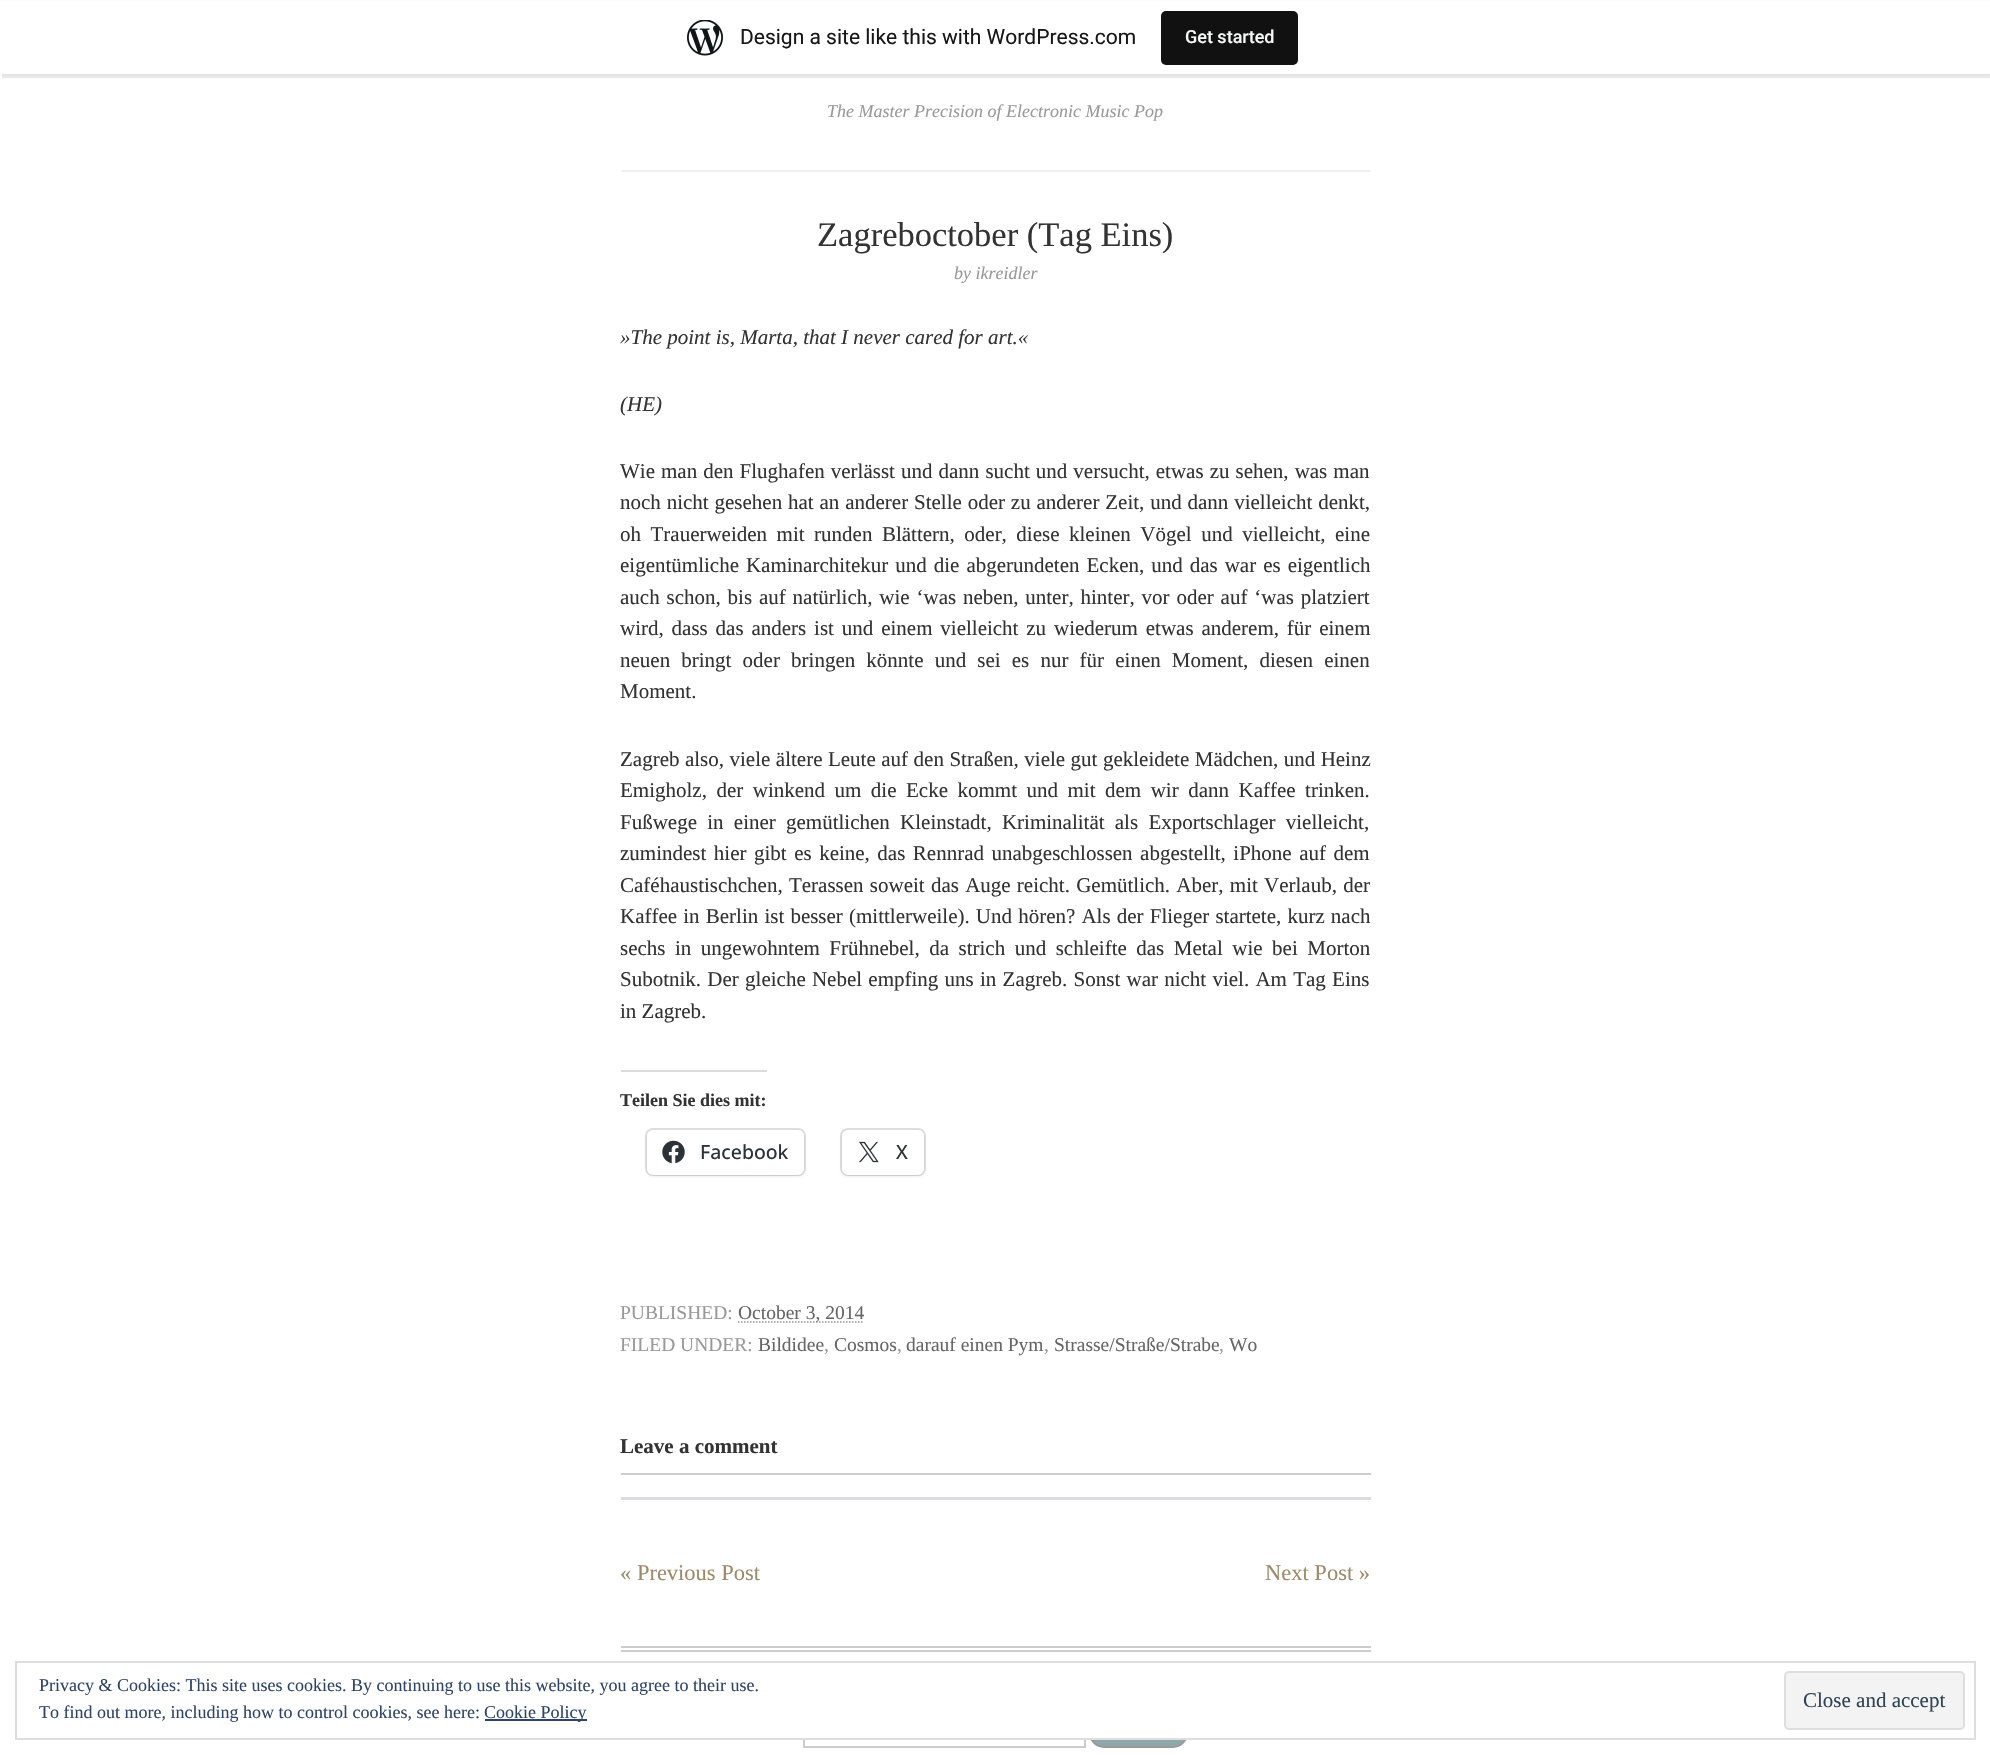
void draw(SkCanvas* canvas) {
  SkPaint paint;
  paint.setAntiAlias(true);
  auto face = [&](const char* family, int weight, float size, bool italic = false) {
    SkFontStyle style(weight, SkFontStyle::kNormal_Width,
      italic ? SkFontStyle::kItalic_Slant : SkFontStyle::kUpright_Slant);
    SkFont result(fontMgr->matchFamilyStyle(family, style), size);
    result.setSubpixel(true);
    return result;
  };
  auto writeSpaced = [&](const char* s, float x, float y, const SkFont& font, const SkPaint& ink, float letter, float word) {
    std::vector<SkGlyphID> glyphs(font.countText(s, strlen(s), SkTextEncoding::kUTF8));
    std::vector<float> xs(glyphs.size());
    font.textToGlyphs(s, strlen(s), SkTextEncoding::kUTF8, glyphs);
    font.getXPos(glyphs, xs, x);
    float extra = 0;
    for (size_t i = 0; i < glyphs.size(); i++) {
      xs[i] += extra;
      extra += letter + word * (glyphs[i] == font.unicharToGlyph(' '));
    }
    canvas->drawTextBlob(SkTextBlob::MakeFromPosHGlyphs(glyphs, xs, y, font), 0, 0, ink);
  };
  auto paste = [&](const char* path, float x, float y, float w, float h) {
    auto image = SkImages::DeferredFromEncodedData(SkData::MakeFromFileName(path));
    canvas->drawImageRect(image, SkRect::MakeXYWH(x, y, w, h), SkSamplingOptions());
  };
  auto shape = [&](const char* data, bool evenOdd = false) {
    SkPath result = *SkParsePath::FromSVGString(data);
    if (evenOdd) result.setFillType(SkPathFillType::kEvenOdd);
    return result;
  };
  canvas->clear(0xffffffff);
  paint.setColor(0x0d000000);
  paint.setMaskFilter(SkMaskFilter::MakeBlur(kNormal_SkBlurStyle, 1.5f));
  canvas->drawRect(SkRect::MakeXYWH(0, 2, 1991, 73), paint);
  paint.setMaskFilter(nullptr);
  paint.setColor(0x14000000);
  canvas->drawPath(shape("M2 74V78H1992V5H1990V74Z"), paint);
  paint.setColor(0xffffffff);
  canvas->drawRect(SkRect::MakeXYWH(0, 1, 1990, 73), paint);
  paste("img/1.png", 687, 20, 36, 36);
  paint.setColor(0xff111111);
  canvas->drawRoundRect(SkRect::MakeXYWH(1161, 11, 137, 54), 5, 5, paint);
  paint.setColor(0xffefefef);
  canvas->drawRect(SkRect::MakeXYWH(621, 170, 750, 2), paint);
  paint.setColor(0xffdcdcde);
  canvas->drawRect(SkRect::MakeXYWH(621, 1070, 146, 2), paint);
  paint.setStroke(true);
  paint.setStrokeWidth(2);
  paint.setColor(0xffe0e0e0);
  canvas->drawRoundRect(SkRect::MakeXYWH(646, 1129, 159, 46), 7, 7, paint);
  paint.setStroke(false);
  paint.setColor(0x1f000000);
  paint.setMaskFilter(SkMaskFilter::MakeBlur(kNormal_SkBlurStyle, 1.5f));
  canvas->drawRoundRect(SkRect::MakeXYWH(647, 1131, 157, 45), 6, 6, paint);
  paint.setMaskFilter(nullptr);
  paint.setColor(0xffffffff);
  canvas->drawRoundRect(SkRect::MakeXYWH(647, 1130, 157, 45), 6, 6, paint);
  paste("img/2.png", 662, 1140, 23, 24);
  paint.setStroke(true);
  paint.setColor(0xffe0e0e0);
  canvas->drawRoundRect(SkRect::MakeXYWH(841, 1129, 84, 46), 7, 7, paint);
  paint.setStroke(false);
  paint.setColor(0x1f000000);
  paint.setMaskFilter(SkMaskFilter::MakeBlur(kNormal_SkBlurStyle, 1.5f));
  canvas->drawRoundRect(SkRect::MakeXYWH(842, 1131, 82, 45), 6, 6, paint);
  paint.setMaskFilter(nullptr);
  paint.setColor(0xffffffff);
  canvas->drawRoundRect(SkRect::MakeXYWH(842, 1130, 82, 45), 6, 6, paint);
  paste("img/3.png", 859, 1141, 20, 22);
  paint.setStroke(true);
  paint.setStrokeWidth(1.5f);
  paint.setColor(0xff999999);
  paint.setPathEffect(SkDashPathEffect::Make({{1.5f, 1.5f}}, 0));
  canvas->drawPath(shape("M738 1322H864"), paint);
  paint.setPathEffect(nullptr);
  paint.setStroke(false);
  {
    const struct { float x, y, w, h; SkColor color; } items[] = {
      {621, 1473, 750, 2, 0xffcccccc},
      {621, 1497, 750, 3, 0xffdcdcde},
      {621, 1646, 750, 2, 0xffcccccc},
      {621, 1650, 750, 2, 0xffcccccc},
    };
    for (auto [x, y, w, h, color] : items) {
      paint.setColor(color);
      canvas->drawRect(SkRect::MakeXYWH(x, y, w, h), paint);
    }
  }
  paint.setStroke(true);
  paint.setStrokeWidth(2);
  canvas->drawRect(SkRect::MakeXYWH(804, 1713, 281, 34), paint);
  paint.setStroke(false);
  paint.setColor(0xff8ea7aa);
  canvas->drawRoundRect(SkRect::MakeXYWH(1090, 1714, 97, 33), 14, 14, paint);
  paint.setStroke(true);
  paint.setColor(0xff999999);
  canvas->drawRoundRect(SkRect::MakeXYWH(1090, 1714, 97, 33), 14, 14, paint);
  paint.setStroke(false);
  paint.setColor(0xffffffff);
  canvas->drawRect(SkRect::MakeXYWH(803, 1712, 385, 26), paint);
  paint.setStroke(true);
  paint.setColor(0xffdedede);
  canvas->drawRect(SkRect::MakeXYWH(16, 1662, 1959, 77), paint);
  paint.setStroke(false);
  paint.setColor(0xff2e4467);
  canvas->drawRect(SkRect::MakeXYWH(485, 1719, 102, 2), paint);
  paint.setColor(0xfff3f3f3);
  canvas->drawRoundRect(SkRect::MakeXYWH(1785, 1672, 179, 57), 4, 4, paint);
  paint.setStroke(true);
  paint.setColor(0xffdedede);
  canvas->drawRoundRect(SkRect::MakeXYWH(1785, 1672, 179, 57), 4, 4, paint);
  auto f0 = face("Roboto", 400, 21);
  paint.setStroke(false);
  paint.setColor(0xff171717);
  canvas->drawString("Design a site like this with WordPress.com", 740, 44, f0, paint);
  auto f1 = face("Roboto", 500, 18);
  paint.setColor(0xfff6f7f7);
  canvas->drawString("Get started", 1185, 43, f1, paint);
  auto f2 = face("Liberation Serif", 400, 18, true);
  paint.setColor(0xff999999);
  canvas->drawString("The Master Precision of Electronic Music Pop", 827, 117, f2, paint);
  auto f3 = face("Liberation Serif", 400, 34.5f);
  paint.setColor(0xff333333);
  canvas->drawString("Zagreboctober (Tag Eins)", 817, 246, f3, paint);
  paint.setColor(0xff999999);
  canvas->drawString("by ikreidler", 954, 279, f2, paint);
  auto f4 = face("Liberation Serif", 400, 21, true);
  paint.setColor(0xff333333);
  canvas->drawString("»The point is, Marta, that I never cared for art.«", 620, 344, f4, paint);
  canvas->drawString("(HE)", 620, 411, f4, paint);
  auto f5 = face("Liberation Serif", 400, 21);
  writeSpaced("Wie man den Flughafen verlässt und dann sucht und versucht, etwas zu sehen, was man", 620, 478, f5, paint, 0, 0.8f);
  writeSpaced("noch nicht gesehen hat an anderer Stelle oder zu anderer Zeit, und dann vielleicht denkt,", 620, 509, f5, paint, 0, 0.6f);
  writeSpaced("oh Trauerweiden mit runden Blättern, oder, diese kleinen Vögel und vielleicht, eine", 620, 541, f5, paint, 0, 4.25f);
  writeSpaced("eigentümliche Kaminarchitekur und die abgerundeten Ecken, und das war es eigentlich", 620, 572, f5, paint, 0, 1.75f);
  writeSpaced("auch schon, bis auf natürlich, wie ‘was neben, unter, hinter, vor oder auf ‘was platziert", 620, 604, f5, paint, 0, 1.6f);
  writeSpaced("wird, dass das anders ist und einem vielleicht zu wiederum etwas anderem, für einem", 620, 635, f5, paint, 0, 2.6f);
  writeSpaced("neuen bringt oder bringen könnte und sei es nur für einen Moment, diesen einen", 620, 667, f5, paint, 0, 5.9f);
  canvas->drawString("Moment.", 620, 698, f5, paint);
  writeSpaced("Zagreb also, viele ältere Leute auf den Straßen, viele gut gekleidete Mädchen, und Heinz", 620, 766, f5, paint, 0, 0.25f);
  writeSpaced("Emigholz, der winkend um die Ecke kommt und mit dem wir dann Kaffee trinken.", 620, 797, f5, paint, 0, 4.25f);
  writeSpaced("Fußwege in einer gemütlichen Kleinstadt, Kriminalität als Exportschlager vielleicht,", 620, 829, f5, paint, 0, 5);
  writeSpaced("zumindest hier gibt es keine, das Rennrad unabgeschlossen abgestellt, iPhone auf dem", 620, 860, f5, paint, 0, 2.25f);
  writeSpaced("Caféhaustischchen, Terassen soweit das Auge reicht. Gemütlich. Aber, mit Verlaub, der", 620, 892, f5, paint, 0, 1);
  writeSpaced("Kaffee in Berlin ist besser (mittlerweile). Und hören? Als der Flieger startete, kurz nach", 620, 923, f5, paint, 0, 0.9f);
  writeSpaced("sechs in ungewohntem Frühnebel, da strich und schleifte das Metal wie bei Morton", 620, 955, f5, paint, 0, 4.25f);
  writeSpaced("Subotnik. Der gleiche Nebel empfing uns in Zagreb. Sonst war nicht viel. Am Tag Eins", 620, 986, f5, paint, 0, 1);
  canvas->drawString("in Zagreb.", 620, 1018, f5, paint);
  auto f6 = face("Liberation Serif", 700, 18);
  canvas->drawString("Teilen Sie dies mit:", 620, 1106, f6, paint);
  auto f7 = face("Open Sans", 500, 19.5f);
  paint.setColor(0xff2c3338);
  canvas->drawString("Facebook", 700, 1159, f7, paint);
  canvas->drawString("X", 896, 1159, f7, paint);
  auto f8 = face("Liberation Serif", 400, 19.5f);
  paint.setColor(0xff999999);
  canvas->drawString("PUBLISHED:", 620, 1319, f8, paint);
  paint.setColor(0xff666666);
  canvas->drawString("October 3, 2014", 738, 1319, f8, paint);
  paint.setColor(0xff999999);
  canvas->drawString("FILED UNDER:", 620, 1351, f8, paint);
  paint.setColor(0xff666666);
  canvas->drawString("Bildidee", 758, 1351, f8, paint);
  paint.setColor(0xff999999);
  canvas->drawString(",", 824, 1351, f8, paint);
  paint.setColor(0xff666666);
  canvas->drawString("Cosmos", 834, 1351, f8, paint);
  paint.setColor(0xff999999);
  canvas->drawString(",", 897, 1351, f8, paint);
  paint.setColor(0xff666666);
  canvas->drawString("darauf einen Pym", 906, 1351, f8, paint);
  paint.setColor(0xff999999);
  canvas->drawString(",", 1044, 1351, f8, paint);
  paint.setColor(0xff666666);
  canvas->drawString("Strasse/Straße/Strabe", 1054, 1351, f8, paint);
  paint.setColor(0xff999999);
  canvas->drawString(",", 1219, 1351, f8, paint);
  paint.setColor(0xff666666);
  canvas->drawString("Wo", 1229, 1351, f8, paint);
  auto f9 = face("Liberation Serif", 700, 21);
  paint.setColor(0xff333333);
  canvas->drawString("Leave a comment", 620, 1453, f9, paint);
  auto f10 = face("Liberation Serif", 400, 22.5f);
  paint.setColor(0xff9c8a6a);
  canvas->drawString("« Previous Post", 620, 1580, f10, paint);
  canvas->drawString("Next Post »", 1265, 1580, f10, paint);
  auto f11 = face("Liberation Serif", 400, 18);
  paint.setColor(0xff2e4467);
  {
    const struct { const char* s; float x, y; } items[] = {
      {"Privacy & Cookies: This site uses cookies. By continuing to use this website, you agree to their use.", 39, 1691},
      {"To find out more, including how to control cookies, see here:", 39, 1718},
      {"Cookie Policy", 484, 1718},
    };
    for (auto [s, x, y] : items) {
      canvas->drawString(s, x, y, f11, paint);
    }
  }
  paint.setColor(0xff2e4453);
  canvas->drawString("Close and accept", 1803, 1707, f5, paint);
}
